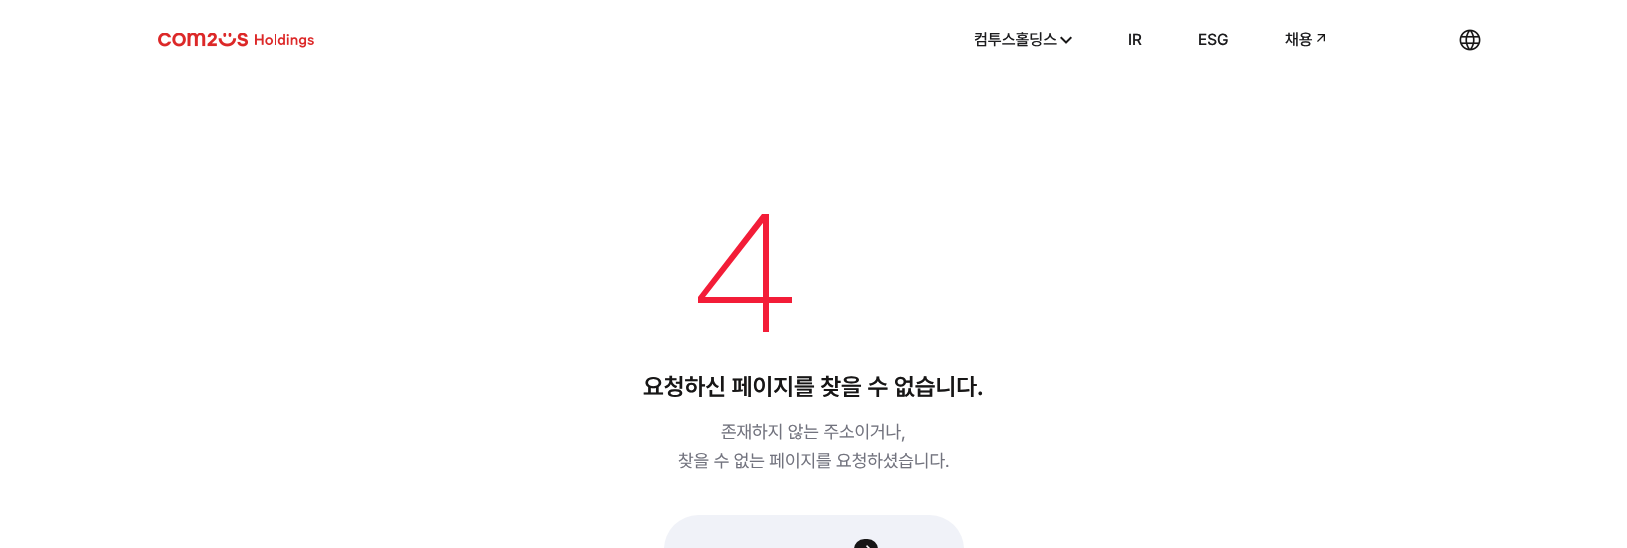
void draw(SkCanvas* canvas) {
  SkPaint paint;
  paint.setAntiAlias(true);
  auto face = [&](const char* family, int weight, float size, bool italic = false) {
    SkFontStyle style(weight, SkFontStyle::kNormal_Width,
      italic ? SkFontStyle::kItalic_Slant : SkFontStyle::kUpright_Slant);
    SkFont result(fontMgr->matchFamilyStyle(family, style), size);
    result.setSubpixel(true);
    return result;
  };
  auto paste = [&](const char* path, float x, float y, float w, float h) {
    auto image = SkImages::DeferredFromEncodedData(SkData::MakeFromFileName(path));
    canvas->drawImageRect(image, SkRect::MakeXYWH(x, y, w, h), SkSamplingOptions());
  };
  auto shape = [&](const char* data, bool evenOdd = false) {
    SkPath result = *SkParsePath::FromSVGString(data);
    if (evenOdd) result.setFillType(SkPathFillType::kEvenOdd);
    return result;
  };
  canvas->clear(0xffffffff);
  paste("img/1.png", 158, 33, 156, 15);
  paste("img/2.png", 1060, 36, 12, 8);
  paste("img/3.png", 1317, 34, 8, 8);
  paste("img/4.png", 1459, 29, 22, 22);
  paint.setColor(0xfff31d38);
  canvas->drawPath(shape("M763 332V303H698V297L762 214H769V297H792V303H769V332ZM705 297H763V223Z"), paint);
  paint.setColor(0xfff0f2f8);
  canvas->drawRoundRect(SkRect::MakeXYWH(664, 515, 300, 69), 36, 36, paint);
  paint.setColor(0xff171616);
  canvas->drawRoundRect(SkRect::MakeXYWH(854, 539, 24, 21), 12, 12, paint);
  paste("img/5.png", 866, 545, 4, 3);
  auto f0 = face("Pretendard", 500, 16);
  paint.setColor(0xff1c1c1e);
  {
    const struct { const char* s; float x, y; } items[] = {
      {"컴투스홀딩스", 974, 45},
      {"IR", 1128, 45},
      {"ESG", 1198, 45},
      {"채용", 1285, 45},
    };
    for (auto [s, x, y] : items) {
      canvas->drawString(s, x, y, f0, paint);
    }
  }
  auto f1 = face("Pretendard", 600, 24);
  paint.setColor(0xff171616);
  canvas->drawString("요청하신 페이지를 찾을 수 없습니다.", 643, 395, f1, paint);
  auto f2 = face("Pretendard", 400, 18);
  paint.setColor(0xff72737e);
  canvas->drawString("존재하지 않는 주소이거나,", 721, 438, f2, paint);
  canvas->drawString("찾을 수 없는 페이지를 요청하셨습니다.", 678, 467, f2, paint);
}
